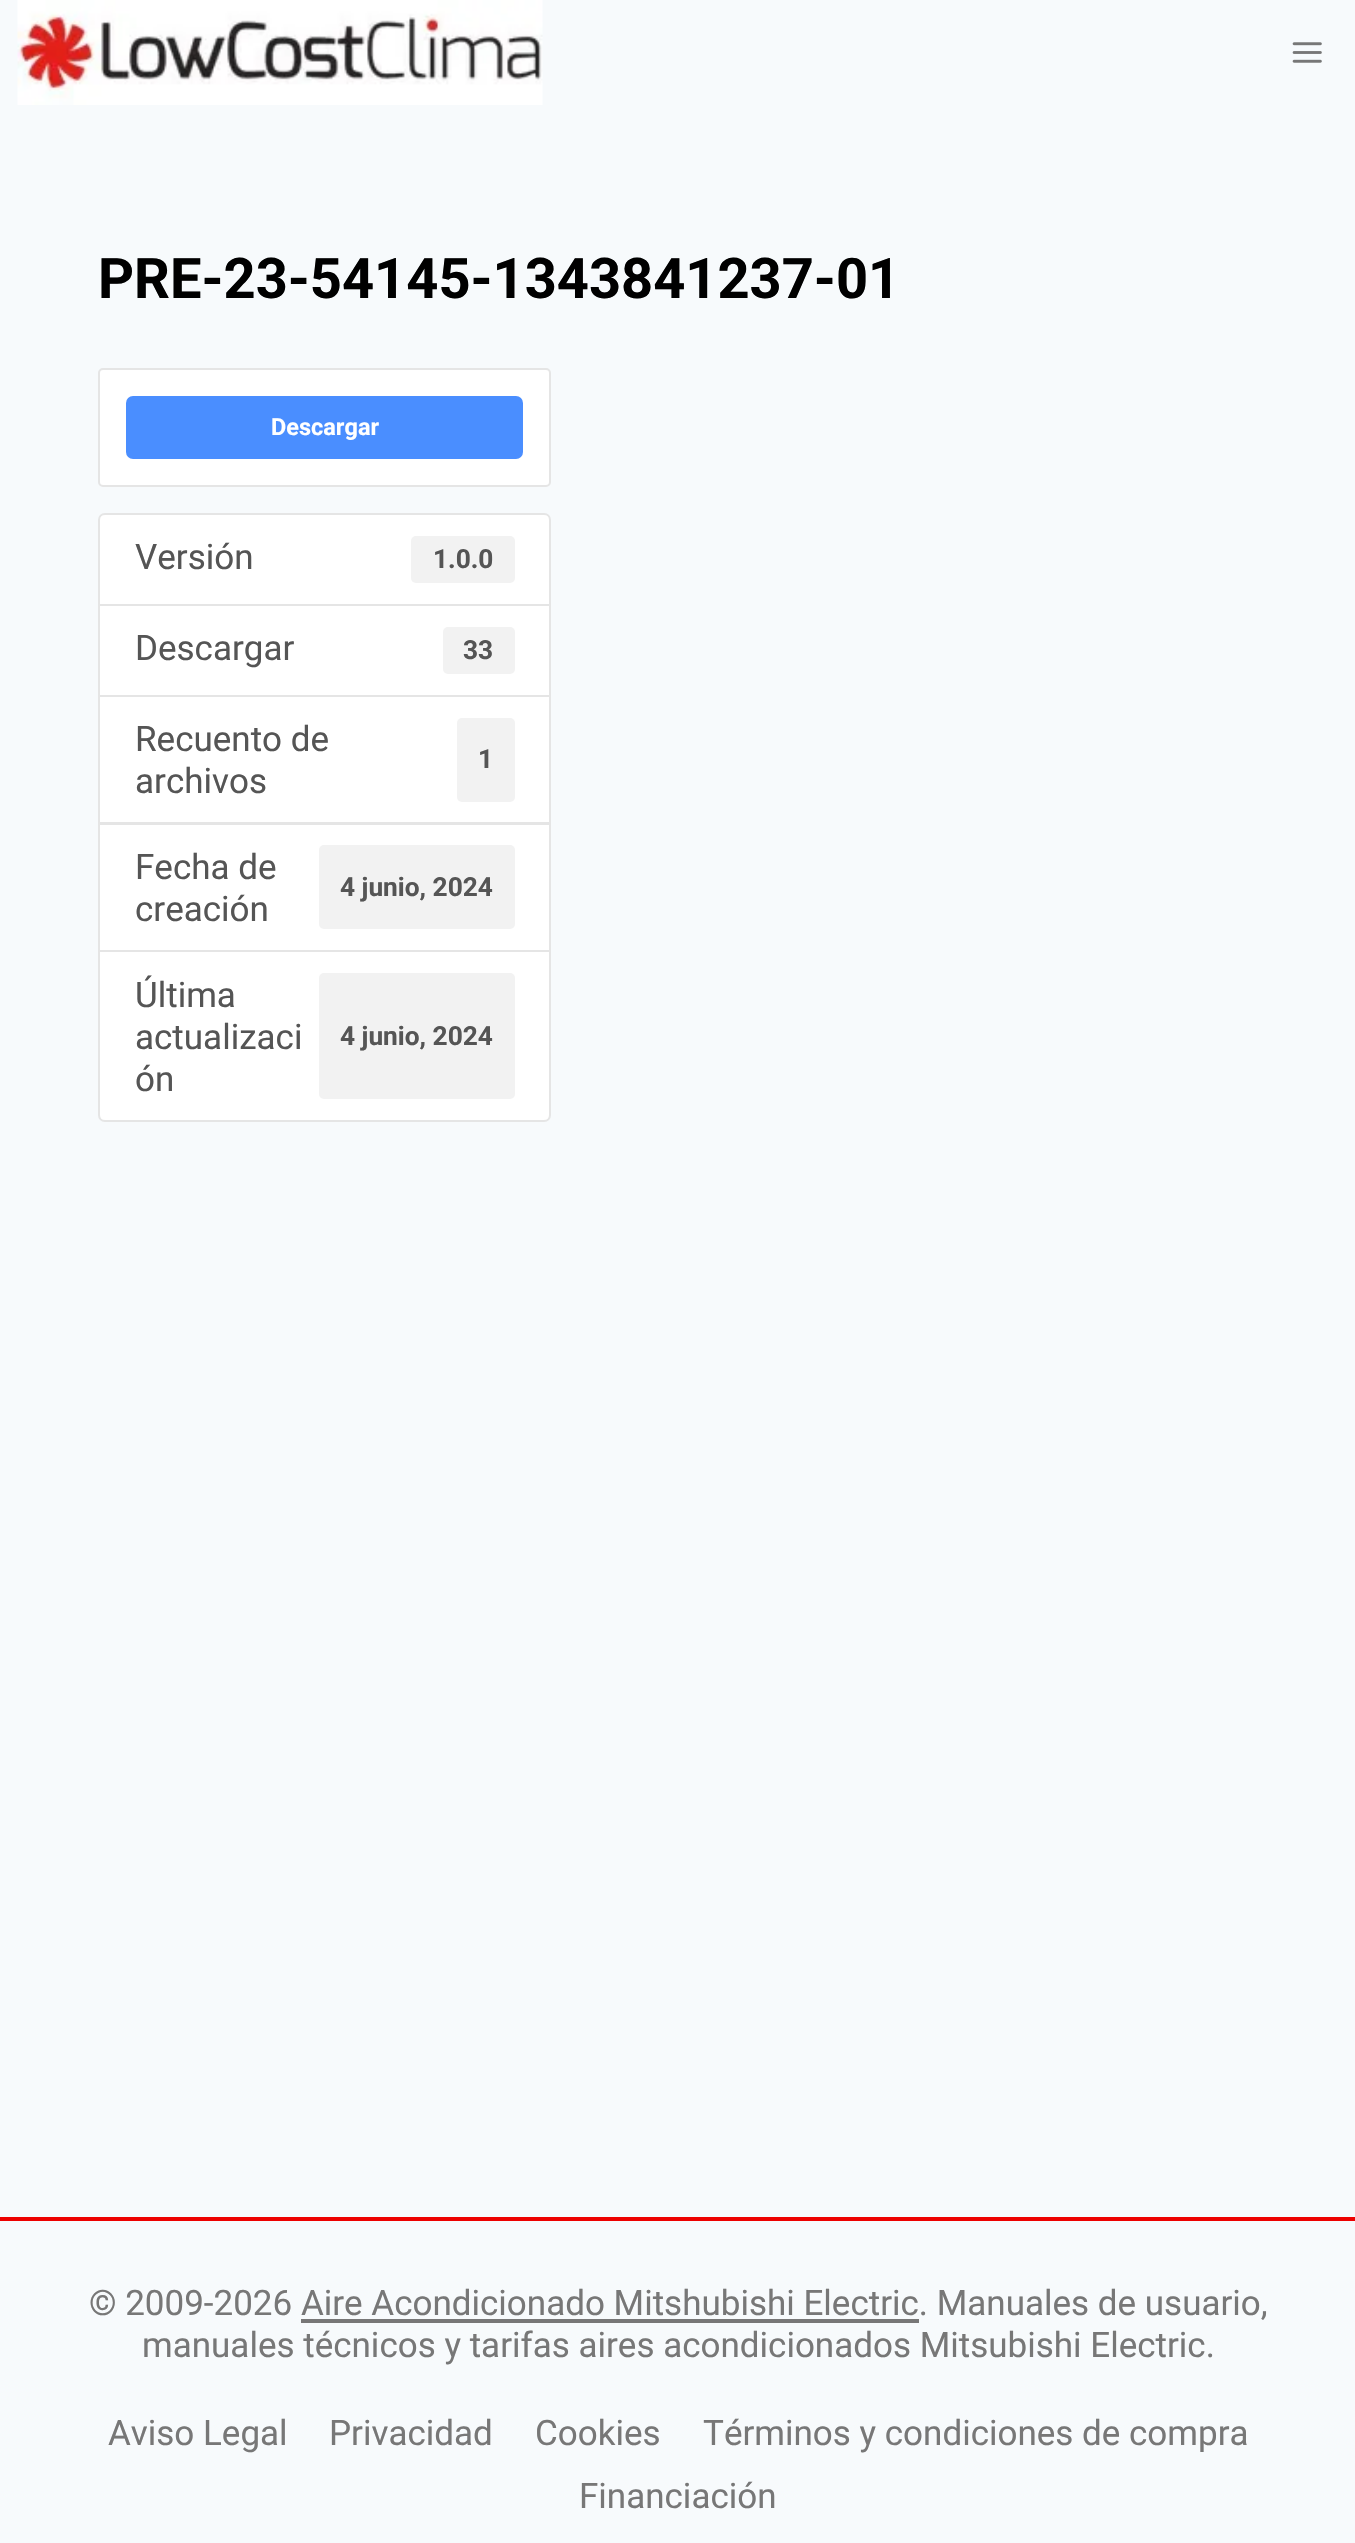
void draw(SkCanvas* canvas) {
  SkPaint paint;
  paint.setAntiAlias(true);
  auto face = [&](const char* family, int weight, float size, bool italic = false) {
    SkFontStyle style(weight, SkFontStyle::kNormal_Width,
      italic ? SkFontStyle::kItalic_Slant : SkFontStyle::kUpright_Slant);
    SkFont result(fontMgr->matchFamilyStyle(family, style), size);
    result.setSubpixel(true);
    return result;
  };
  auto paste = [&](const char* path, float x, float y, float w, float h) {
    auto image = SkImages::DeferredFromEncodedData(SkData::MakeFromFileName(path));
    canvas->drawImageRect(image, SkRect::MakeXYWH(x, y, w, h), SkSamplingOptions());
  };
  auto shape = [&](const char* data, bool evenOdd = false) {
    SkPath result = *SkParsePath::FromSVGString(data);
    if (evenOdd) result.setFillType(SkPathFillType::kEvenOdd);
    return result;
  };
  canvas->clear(0xfff7fafc);
  paste("img/1.png", 17, 0, 526, 105);
  paste("img/2.png", 1292, 42, 30, 21);
  paint.setColor(0xffffffff);
  canvas->drawRoundRect(SkRect::MakeXYWH(99, 369, 451, 117), 4, 4, paint);
  paint.setStroke(true);
  paint.setStrokeWidth(2);
  paint.setColor(0xffe5e5e5);
  canvas->drawRoundRect(SkRect::MakeXYWH(99, 369, 451, 117), 4, 4, paint);
  paint.setStroke(false);
  paint.setColor(0xff4a8eff);
  canvas->drawRoundRect(SkRect::MakeXYWH(126, 396, 397, 63), 7, 7, paint);
  paint.setColor(0xffffffff);
  canvas->drawPath(shape("M105 514H544C547.5 514 550 516.5 550 520V605H99V520C99 516.5 101.5 514 105 514Z"), paint);
  paint.setStroke(true);
  paint.setColor(0xffe5e5e5);
  canvas->drawPath(shape("M105 514H544C547.5 514 550 516.5 550 520V605H99V520C99 516.5 101.5 514 105 514Z"), paint);
  paint.setStroke(false);
  paint.setColor(0xfff2f2f2);
  canvas->drawRoundRect(SkRect::MakeXYWH(411, 536, 104, 47), 5, 5, paint);
  paint.setColor(0xffffffff);
  canvas->drawRect(SkRect::MakeXYWH(99, 605, 451, 91), paint);
  paint.setStroke(true);
  paint.setColor(0xffe5e5e5);
  canvas->drawRect(SkRect::MakeXYWH(99, 605, 451, 91), paint);
  paint.setStroke(false);
  paint.setColor(0xfff2f2f2);
  canvas->drawRoundRect(SkRect::MakeXYWH(443, 627, 72, 47), 5, 5, paint);
  paint.setColor(0xffffffff);
  canvas->drawRect(SkRect::MakeXYWH(99, 696, 451, 127), paint);
  paint.setStroke(true);
  paint.setColor(0xffe5e5e5);
  canvas->drawRect(SkRect::MakeXYWH(99, 696, 451, 127), paint);
  paint.setStroke(false);
  paint.setColor(0xfff2f2f2);
  canvas->drawRoundRect(SkRect::MakeXYWH(457, 718, 58, 84), 5, 5, paint);
  paint.setColor(0xffffffff);
  canvas->drawRect(SkRect::MakeXYWH(99, 824, 451, 127), paint);
  paint.setStroke(true);
  paint.setColor(0xffe5e5e5);
  canvas->drawRect(SkRect::MakeXYWH(99, 824, 451, 127), paint);
  paint.setStroke(false);
  paint.setColor(0xfff2f2f2);
  canvas->drawRoundRect(SkRect::MakeXYWH(319, 845, 196, 84), 5, 5, paint);
  paint.setColor(0xffffffff);
  canvas->drawPath(shape("M99 951H550V1115C550 1118.5 547.5 1121 544 1121H105C101.5 1121 99 1118.5 99 1115Z"), paint);
  paint.setStroke(true);
  paint.setColor(0xffe5e5e5);
  canvas->drawPath(shape("M99 951H550V1115C550 1118.5 547.5 1121 544 1121H105C101.5 1121 99 1118.5 99 1115Z"), paint);
  paint.setStroke(false);
  paint.setColor(0xfff2f2f2);
  canvas->drawRoundRect(SkRect::MakeXYWH(319, 973, 196, 126), 5, 5, paint);
  paint.setColor(0xffed0000);
  canvas->drawRect(SkRect::MakeXYWH(0, 2217, 1355, 4), paint);
  paint.setColor(0xff777777);
  canvas->drawRect(SkRect::MakeXYWH(301, 2319, 618, 4), paint);
  auto f0 = face("Roboto", 700, 56);
  paint.setColor(0xff000000);
  canvas->drawString("PRE-23-54145-1343841237-01", 98, 298, f0, paint);
  auto f1 = face("Roboto", 700, 23.5f);
  paint.setColor(0xffffffff);
  canvas->drawString("Descargar", 271, 435, f1, paint);
  auto f2 = face("Roboto", 400, 35);
  paint.setColor(0xff555555);
  canvas->drawString("Versión", 135, 569, f2, paint);
  auto f3 = face("Roboto", 700, 26.25f);
  canvas->drawString("1.0.0", 433, 568, f3, paint);
  canvas->drawString("Descargar", 135, 660, f2, paint);
  canvas->drawString("33", 463, 659, f3, paint);
  canvas->drawString("Recuento de", 135, 751, f2, paint);
  canvas->drawString("1", 478, 768, f3, paint);
  canvas->drawString("archivos", 135, 793, f2, paint);
  canvas->drawString("Fecha de", 135, 879, f2, paint);
  canvas->drawString("4 junio, 2024", 340, 896, f3, paint);
  {
    const struct { const char* s; float x, y; } items[] = {
      {"creación", 135, 921},
      {"Última", 135, 1007},
      {"actualizaci", 135, 1049},
    };
    for (auto [s, x, y] : items) {
      canvas->drawString(s, x, y, f2, paint);
    }
  }
  canvas->drawString("4 junio, 2024", 340, 1045, f3, paint);
  canvas->drawString("ón", 135, 1091, f2, paint);
  paint.setColor(0xff777777);
  {
    const struct { const char* s; float x, y; } items[] = {
      {"© 2009-2026 Aire Acondicionado Mitshubishi Electric. Manuales de usuario,", 89, 2315},
      {"manuales técnicos y tarifas aires acondicionados Mitsubishi Electric.", 142, 2357},
      {"Aviso Legal", 108, 2445},
      {"Privacidad", 329, 2445},
      {"Cookies", 535, 2445},
      {"Términos y condiciones de compra", 703, 2445},
      {"Financiación", 579, 2508},
    };
    for (auto [s, x, y] : items) {
      canvas->drawString(s, x, y, f2, paint);
    }
  }
}
